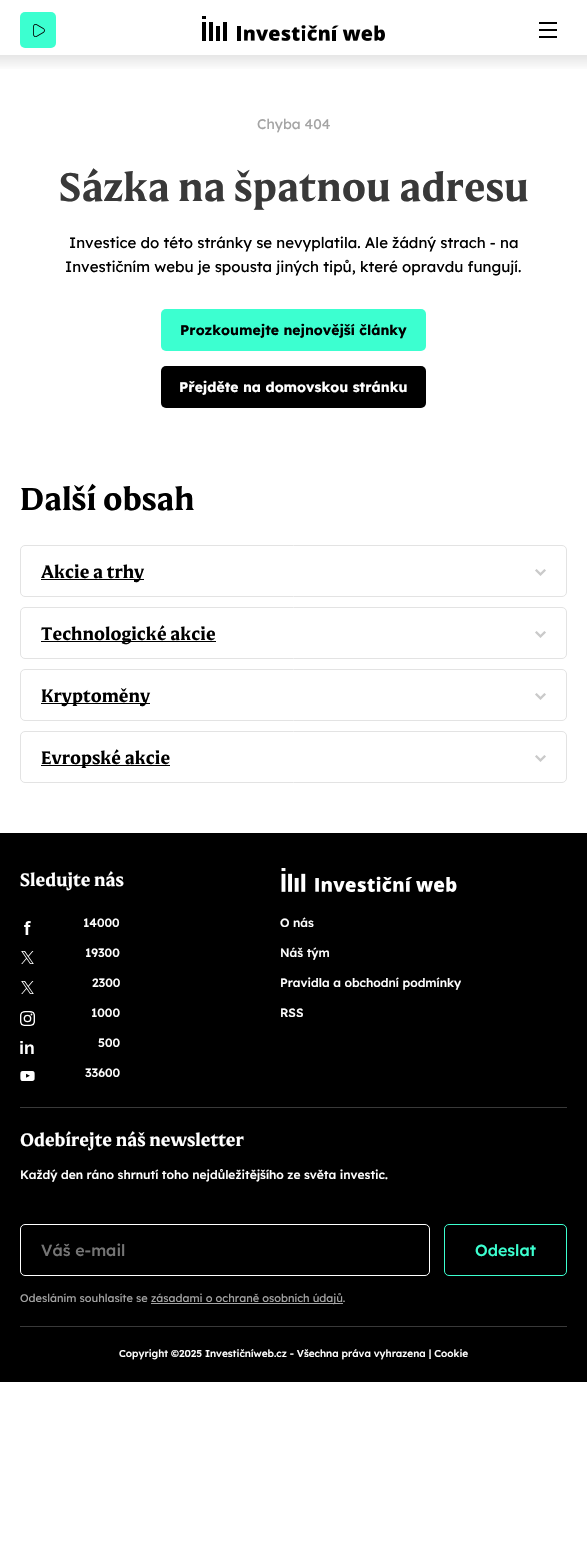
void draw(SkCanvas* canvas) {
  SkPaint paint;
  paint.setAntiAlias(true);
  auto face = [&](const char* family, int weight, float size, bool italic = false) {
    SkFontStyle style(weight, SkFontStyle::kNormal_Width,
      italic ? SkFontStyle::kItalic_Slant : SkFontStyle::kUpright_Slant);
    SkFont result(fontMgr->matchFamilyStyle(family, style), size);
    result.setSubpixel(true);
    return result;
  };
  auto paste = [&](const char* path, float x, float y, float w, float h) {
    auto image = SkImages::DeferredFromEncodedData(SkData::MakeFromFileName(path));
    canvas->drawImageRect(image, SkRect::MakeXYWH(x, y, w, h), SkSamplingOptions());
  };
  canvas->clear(0xffffffff);
  paint.setColor(0xff3cffd0);
  canvas->drawRoundRect(SkRect::MakeXYWH(20, 12, 36, 36), 5, 5, paint);
  paste("img/1.png", 33, 24, 12, 13);
  paste("img/2.png", 202, 16, 183, 25);
  {
    const struct { float x, y, w, h; SkColor color; } items[] = {
      {539, 29, 18, 2, 0xff000000},
      {539, 22, 18, 2, 0xff000000},
      {539, 36, 18, 2, 0xff000000},
    };
    for (auto [x, y, w, h, color] : items) {
      paint.setColor(color);
      canvas->drawRect(SkRect::MakeXYWH(x, y, w, h), paint);
    }
  }
  {
    const SkColor colors[] = {0xffffffff, 0xffe6e6e6};
    const float stops[] = {0, 1};
    const SkPoint ends[] = {{294, 71}, {294, 55}};
    paint.setShader(SkGradientShader::MakeLinear(ends, colors, stops, 2, SkTileMode::kClamp));
    paint.setAlpha(255);
  }
  canvas->drawRect(SkRect::MakeXYWH(0, 55, 587, 14), paint);
  paint.setShader(nullptr);
  paint.setColor(0xff3cffd0);
  canvas->drawRoundRect(SkRect::MakeXYWH(161, 309, 265, 42), 5, 5, paint);
  paint.setColor(0xff000000);
  canvas->drawRoundRect(SkRect::MakeXYWH(161, 366, 265, 42), 5, 5, paint);
  paint.setStroke(true);
  paint.setStrokeWidth(1);
  paint.setColor(0xffe3e3e3);
  canvas->drawRoundRect(SkRect::MakeXYWH(20.5f, 545.5f, 546, 51), 4.5f, 4.5f, paint);
  paint.setStroke(false);
  paint.setColor(0xff000000);
  canvas->drawRect(SkRect::MakeXYWH(41, 579, 103, 1), paint);
  paste("img/3.png", 535, 569, 11, 7);
  paint.setStroke(true);
  paint.setColor(0xffe3e3e3);
  canvas->drawRoundRect(SkRect::MakeXYWH(20.5f, 607.5f, 546, 51), 4.5f, 4.5f, paint);
  paint.setStroke(false);
  paint.setColor(0xff000000);
  canvas->drawRect(SkRect::MakeXYWH(41, 641, 175, 1), paint);
  paste("img/3.png", 535, 631, 11, 7);
  paint.setStroke(true);
  paint.setColor(0xffe3e3e3);
  canvas->drawRoundRect(SkRect::MakeXYWH(20.5f, 669.5f, 546, 51), 4.5f, 4.5f, paint);
  paint.setStroke(false);
  paint.setColor(0xff000000);
  canvas->drawRect(SkRect::MakeXYWH(41, 703, 109, 1), paint);
  paste("img/3.png", 535, 693, 11, 7);
  paint.setStroke(true);
  paint.setColor(0xffe3e3e3);
  canvas->drawRoundRect(SkRect::MakeXYWH(20.5f, 731.5f, 546, 51), 4.5f, 4.5f, paint);
  paint.setStroke(false);
  paint.setColor(0xff000000);
  canvas->drawRect(SkRect::MakeXYWH(41, 765, 129, 1), paint);
  paste("img/3.png", 535, 755, 11, 7);
  canvas->drawRect(SkRect::MakeXYWH(0, 833, 587, 549), paint);
  paint.setColor(0xff393939);
  canvas->drawRect(SkRect::MakeXYWH(20, 1326, 547, 1), paint);
  paste("img/4.png", 24, 921, 7, 14);
  paste("img/5.png", 21, 951, 13, 13);
  paste("img/5.png", 21, 981, 13, 13);
  paste("img/6.png", 20, 1011, 15, 15);
  paste("img/7.png", 20, 1041, 14, 13);
  paste("img/8.png", 20, 1071, 15, 10);
  paste("img/9.png", 281, 868, 176, 24);
  canvas->drawRect(SkRect::MakeXYWH(20, 1107, 547, 1), paint);
  paint.setStroke(true);
  paint.setColor(0xffffffff);
  canvas->drawRoundRect(SkRect::MakeXYWH(20.5f, 1224.5f, 409, 51), 4.5f, 4.5f, paint);
  paint.setColor(0xff3cffd0);
  canvas->drawRoundRect(SkRect::MakeXYWH(444.5f, 1224.5f, 122, 51), 4.5f, 4.5f, paint);
  paint.setStroke(false);
  paint.setColor(0xffa4a4a4);
  canvas->drawRect(SkRect::MakeXYWH(151, 1303, 192, 1), paint);
  auto f0 = face("Lexend", 400, 14);
  canvas->drawString("Chyba 404", 257, 129, f0, paint);
  auto f1 = face("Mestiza", 700, 40);
  paint.setColor(0xff393939);
  canvas->drawString("Sázka na špatnou adresu", 59, 201, f1, paint);
  auto f2 = face("Lexend", 400, 15);
  paint.setColor(0xff000000);
  canvas->drawString("Investice do této stránky se nevyplatila. Ale žádný strach - na", 69, 248, f2, paint);
  canvas->drawString("Investičním webu je spousta jiných tipů, které opravdu fungují.", 65, 272, f2, paint);
  auto f3 = face("Lexend", 700, 14);
  canvas->drawString("Prozkoumejte nejnovější články", 180, 335, f3, paint);
  paint.setColor(0xffffffff);
  canvas->drawString("Přejděte na domovskou stránku", 179, 392, f3, paint);
  auto f4 = face("Mestiza", 700, 32);
  paint.setColor(0xff000000);
  canvas->drawString("Další obsah", 20, 510, f4, paint);
  auto f5 = face("Mestiza", 700, 18);
  {
    const struct { const char* s; float x, y; } items[] = {
      {"Akcie a trhy", 41, 578},
      {"Technologické akcie", 41, 640},
      {"Kryptoměny", 41, 702},
      {"Evropské akcie", 41, 764},
    };
    for (auto [s, x, y] : items) {
      canvas->drawString(s, x, y, f5, paint);
    }
  }
  paint.setColor(0xffffffff);
  canvas->drawString("Sledujte nás", 20, 886, f5, paint);
  auto f6 = face("Lexend", 500, 12);
  {
    const struct { const char* s; float x, y; } items[] = {
      {"14000", 83, 927},
      {"19300", 85, 957},
      {"2300", 92, 987},
      {"1000", 91, 1017},
      {"500", 98, 1047},
      {"33600", 85, 1077},
      {"O nás", 280, 927},
      {"Náš tým", 280, 957},
      {"Pravidla a obchodní podmínky", 280, 987},
      {"RSS", 280, 1017},
    };
    for (auto [s, x, y] : items) {
      canvas->drawString(s, x, y, f6, paint);
    }
  }
  canvas->drawString("Odebírejte náš newsletter", 20, 1146, f5, paint);
  canvas->drawString("Každý den ráno shrnutí toho nejdůležitějšího ze světa investic.", 20, 1179, f6, paint);
  auto f7 = face("Lexend", 500, 16);
  paint.setColor(0xff757575);
  canvas->drawString("Váš e-mail", 41, 1256, f7, paint);
  paint.setColor(0xff3cffd0);
  canvas->drawString("Odeslat", 475, 1256, f7, paint);
  auto f8 = face("Lexend", 400, 11);
  paint.setColor(0xffa4a4a4);
  canvas->drawString("Odesláním souhlasíte se", 20, 1302, f8, paint);
  canvas->drawString("zásadami o ochraně osobních údajů.", 151, 1302, f8, paint);
  auto f9 = face("Lexend", 500, 10);
  paint.setColor(0xffffffff);
  canvas->drawString("Copyright ©2025 Investičníweb.cz - Všechna práva vyhrazena | Cookie", 119, 1357, f9, paint);
}
